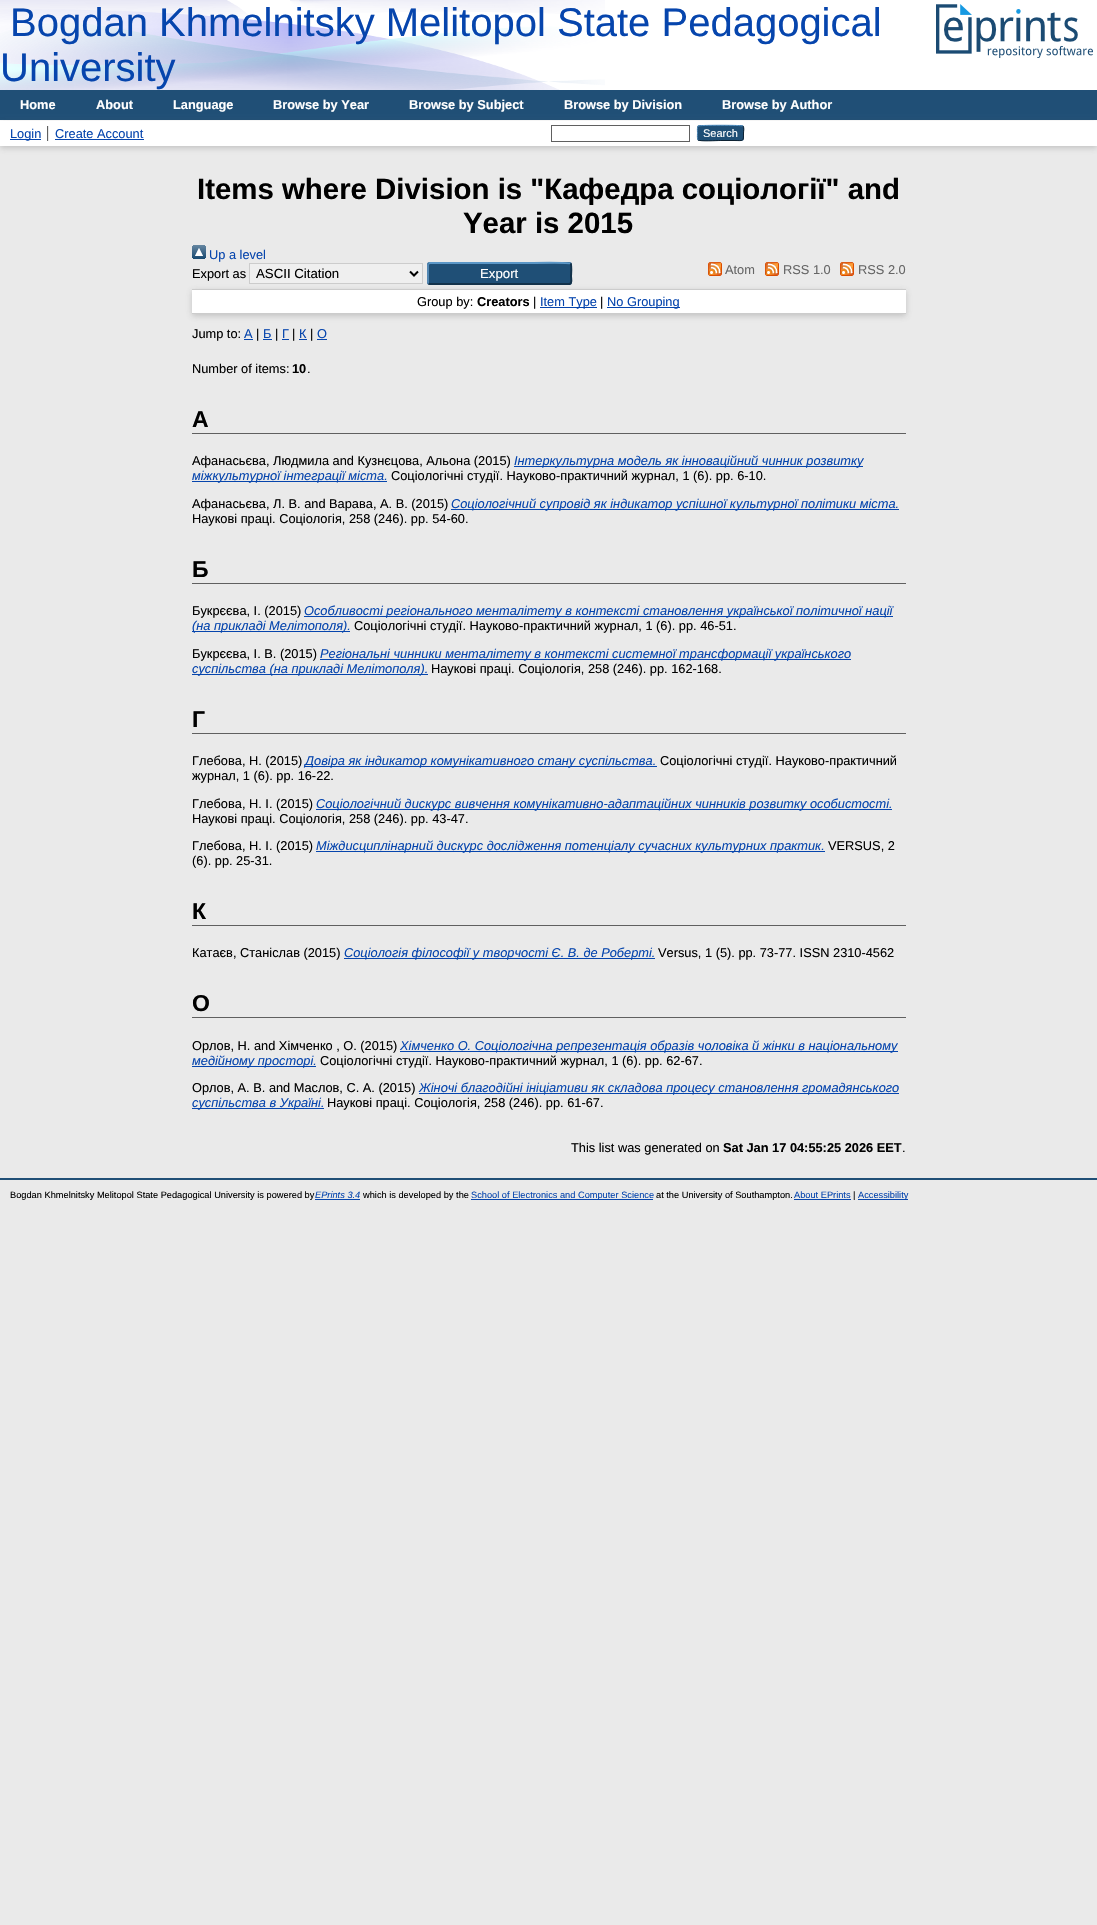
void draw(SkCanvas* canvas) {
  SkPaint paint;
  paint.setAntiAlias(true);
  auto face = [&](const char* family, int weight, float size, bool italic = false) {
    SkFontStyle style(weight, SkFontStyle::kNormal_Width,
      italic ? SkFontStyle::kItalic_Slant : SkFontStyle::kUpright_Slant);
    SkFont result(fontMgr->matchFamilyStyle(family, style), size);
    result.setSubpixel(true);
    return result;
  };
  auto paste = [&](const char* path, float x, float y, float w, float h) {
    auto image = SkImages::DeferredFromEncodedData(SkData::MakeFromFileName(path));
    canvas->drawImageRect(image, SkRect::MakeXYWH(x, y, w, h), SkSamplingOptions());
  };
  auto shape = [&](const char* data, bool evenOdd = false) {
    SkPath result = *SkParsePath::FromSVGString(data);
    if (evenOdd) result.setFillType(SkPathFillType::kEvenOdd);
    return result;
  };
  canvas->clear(0xffeaeaea);
  paint.setColor(0xffffffff);
  canvas->drawRect(SkRect::MakeXYWH(0, 0, 1097, 90), paint);
  paste("img/1.png", 0, 0, 605, 90);
  paste("img/2.png", 936, 4, 157, 54);
  paint.setColor(0xff204f76);
  canvas->drawRect(SkRect::MakeXYWH(0, 90, 1097, 30), paint);
  paint.setColor(0xffffffff);
  canvas->drawRect(SkRect::MakeXYWH(0, 120, 1097, 1), paint);
  paint.setColor(0x4d646464);
  paint.setMaskFilter(SkMaskFilter::MakeBlur(kNormal_SkBlurStyle, 3));
  canvas->drawRect(SkRect::MakeXYWH(0, 123, 1097, 25), paint);
  paint.setMaskFilter(nullptr);
  {
    const struct { float x, y, w, h; SkColor color; } items[] = {
      {0, 121, 1097, 25, 0xffffffff},
      {47, 126, 1, 15, 0xff606060},
      {10, 139, 31, 1, 0xff0645ad},
      {48, 126, 1, 15, 0xffe8e8e8},
      {55, 139, 89, 1, 0xff0645ad},
    };
    for (auto [x, y, w, h, color] : items) {
      paint.setColor(color);
      canvas->drawRect(SkRect::MakeXYWH(x, y, w, h), paint);
    }
  }
  paint.setStroke(true);
  paint.setStrokeWidth(1);
  paint.setColor(0xff606060);
  canvas->drawRect(SkRect::MakeXYWH(551.5f, 125.5f, 138, 16), paint);
  paint.setStroke(false);
  paint.setColor(0xff1f4f76);
  canvas->drawRoundRect(SkRect::MakeXYWH(697, 125, 47, 16), 3, 3, paint);
  paint.setStroke(true);
  paint.setColor(0xff5b97c7);
  canvas->drawPath(shape("M698 126C699.5 125 741.5 125 743 126"), paint);
  paint.setColor(0xff0d2131);
  canvas->drawPath(shape("M743 126C744.5 128 743.5 131 743.5 133C743.5 142 743.5 140.5 734 140.5H720.5C717 140.5 700 141.5 698 140"), paint);
  paint.setColor(0xff5287b3);
  canvas->drawPath(shape("M698 140C697 138.5 697.5 134.5 697.5 133C697.5 131.5 697 127.5 698 126"), paint);
  paste("img/3.png", 192, 245, 14, 14);
  paint.setStroke(false);
  paint.setColor(0x4d646464);
  paint.setMaskFilter(SkMaskFilter::MakeBlur(kNormal_SkBlurStyle, 3));
  canvas->drawRect(SkRect::MakeXYWH(192, 291, 714, 25), paint);
  paint.setMaskFilter(nullptr);
  paint.setColor(0xffefefef);
  canvas->drawRect(SkRect::MakeXYWH(249.5f, 263.5f, 173, 20), paint);
  paint.setStroke(true);
  paint.setColor(0xffcccccc);
  canvas->drawRect(SkRect::MakeXYWH(249.5f, 263.5f, 173, 20), paint);
  paint.setStrokeWidth(2);
  paint.setColor(0xff000000);
  canvas->drawPath(shape("M410 271.5L414 275.5L418 271.5"), paint);
  paint.setStroke(false);
  paint.setColor(0xff1f4f76);
  canvas->drawRoundRect(SkRect::MakeXYWH(427, 262, 145, 23), 3, 3, paint);
  paint.setStroke(true);
  paint.setColor(0xff5b97c7);
  canvas->drawPath(shape("M428.5 263.5L430 263H522.5C525.5 263 569 262 570.5 263.5"), paint);
  paint.setColor(0xff13324a);
  canvas->drawPath(shape("M570.5 263.5C572 265 571 274 571 276.5C571 278 572.5 283 569.5 284H430L428.5 283.5"), paint);
  paint.setColor(0xff5287b3);
  canvas->drawPath(shape("M428.5 283.5C428 283 428 282.5 428 282V265C428 264.5 428 264 428.5 263.5"), paint);
  paste("img/4.png", 708, 262, 14, 14);
  paste("img/4.png", 765, 262, 14, 14);
  paste("img/4.png", 840, 262, 14, 14);
  paint.setStroke(false);
  {
    const struct { float x, y, w, h; SkColor color; } items[] = {
      {192, 290, 714, 23, 0xffffffff},
      {192, 289, 714, 1, 0xffcccccc},
      {192, 313, 714, 1, 0xffcccccc},
      {540, 307, 57, 1, 0xff0645ad},
      {607, 307, 73, 1, 0xff0645ad},
      {244, 339, 9, 1, 0xff0645ad},
      {263, 339, 9, 1, 0xff0645ad},
      {282, 339, 7, 1, 0xff0645ad},
      {299, 339, 8, 1, 0xff0645ad},
      {317, 339, 10, 1, 0xff0645ad},
      {192, 433, 714, 1, 0xff606060},
      {514, 466, 349, 1, 0xff0645ad},
      {192, 481, 195, 1, 0xff0645ad},
      {451, 509, 448, 1, 0xff0645ad},
      {192, 583, 714, 1, 0xff606060},
      {304, 616, 589, 1, 0xff0645ad},
      {192, 631, 158, 1, 0xff0645ad},
      {320, 659, 531, 1, 0xff0645ad},
      {192, 674, 236, 1, 0xff0645ad},
      {192, 733, 714, 1, 0xff606060},
      {305, 766, 352, 1, 0xff0645ad},
      {316, 809, 576, 1, 0xff0645ad},
      {316, 851, 509, 1, 0xff0645ad},
      {192, 925, 714, 1, 0xff606060},
      {344, 958, 311, 1, 0xff0645ad},
      {192, 1017, 714, 1, 0xff606060},
      {400, 1051, 498, 1, 0xff0645ad},
      {192, 1066, 124, 1, 0xff0645ad},
      {419, 1093, 480, 1, 0xff0645ad},
      {192, 1108, 132, 1, 0xff0645ad},
      {0, 1178, 1097, 2, 0xff204f76},
      {315, 1199, 45, 1, 0xff0645ad},
      {471, 1199, 182, 1, 0xff0645ad},
      {794, 1199, 57, 1, 0xff0645ad},
      {858, 1199, 50, 1, 0xff0645ad},
    };
    for (auto [x, y, w, h, color] : items) {
      paint.setColor(color);
      canvas->drawRect(SkRect::MakeXYWH(x, y, w, h), paint);
    }
  }
  auto f0 = face("Liberation Sans", 400, 40);
  canvas->drawString("Bogdan Khmelnitsky Melitopol State Pedagogical", 10, 36, f0, paint);
  canvas->drawString("University", 0, 81, f0, paint);
  auto f1 = face("Liberation Sans", 700, 12.8f);
  paint.setColor(0xffffffff);
  {
    const struct { const char* s; float x, y; } items[] = {
      {"Home", 20, 109},
      {"About", 96, 109},
      {"Language", 173, 109},
      {"Browse by Year", 273, 109},
      {"Browse by Subject", 409, 109},
      {"Browse by Division", 564, 109},
      {"Browse by Author", 722, 109},
    };
    for (auto [s, x, y] : items) {
      canvas->drawString(s, x, y, f1, paint);
    }
  }
  auto f2 = face("Liberation Sans", 400, 12.8f);
  paint.setColor(0xff0645ad);
  canvas->drawString("Login", 10, 138, f2, paint);
  canvas->drawString("Create Account", 55, 138, f2, paint);
  auto f3 = face("Liberation Sans", 400, 11);
  paint.setColor(0xffffffff);
  canvas->drawString("Search", 703, 137, f3, paint);
  auto f4 = face("Liberation Sans", 700, 29.4f);
  paint.setColor(0xff000000);
  canvas->drawString("Items where Division is \"Кафедра соціології\" and", 197, 199, f4, paint);
  canvas->drawString("Year is 2015", 463, 233, f4, paint);
  paint.setColor(0xff0645ad);
  canvas->drawString("Up a level", 209, 259, f2, paint);
  paint.setColor(0xff000000);
  canvas->drawString("Export as", 192, 278, f2, paint);
  auto f5 = face("Liberation Sans", 400, 13.25f);
  canvas->drawString("ASCII Citation", 256, 278, f5, paint);
  paint.setColor(0xffffffff);
  canvas->drawString("Export", 480, 278, f5, paint);
  paint.setColor(0xff666666);
  {
    const struct { const char* s; float x, y; } items[] = {
      {"Atom", 725, 274},
      {"RSS 1.0", 783, 274},
      {"RSS 2.0", 858, 274},
    };
    for (auto [s, x, y] : items) {
      canvas->drawString(s, x, y, f2, paint);
    }
  }
  paint.setColor(0xff000000);
  canvas->drawString("Group by:", 417, 306, f2, paint);
  canvas->drawString("Creators", 477, 306, f1, paint);
  canvas->drawString("|", 533, 306, f2, paint);
  paint.setColor(0xff0645ad);
  canvas->drawString("Item Type", 540, 306, f2, paint);
  paint.setColor(0xff000000);
  canvas->drawString("|", 600, 306, f2, paint);
  paint.setColor(0xff0645ad);
  canvas->drawString("No Grouping", 607, 306, f2, paint);
  paint.setColor(0xff000000);
  canvas->drawString("Jump to:", 192, 338, f2, paint);
  paint.setColor(0xff0645ad);
  canvas->drawString("А", 244, 338, f2, paint);
  paint.setColor(0xff000000);
  canvas->drawString("|", 256, 338, f2, paint);
  paint.setColor(0xff0645ad);
  canvas->drawString("Б", 263, 338, f2, paint);
  paint.setColor(0xff000000);
  canvas->drawString("|", 275, 338, f2, paint);
  paint.setColor(0xff0645ad);
  canvas->drawString("Г", 282, 338, f2, paint);
  paint.setColor(0xff000000);
  canvas->drawString("|", 292, 338, f2, paint);
  paint.setColor(0xff0645ad);
  canvas->drawString("К", 299, 338, f2, paint);
  paint.setColor(0xff000000);
  canvas->drawString("|", 310, 338, f2, paint);
  paint.setColor(0xff0645ad);
  canvas->drawString("О", 317, 338, f2, paint);
  paint.setColor(0xff000000);
  canvas->drawString("Number of items:", 192, 373, f2, paint);
  canvas->drawString("10", 292, 373, f1, paint);
  canvas->drawString(".", 307, 373, f2, paint);
  auto f6 = face("Liberation Sans", 700, 23);
  canvas->drawString("А", 192, 427, f6, paint);
  canvas->drawString("Афанасьєва, Людмила and Кузнєцова, Альона (2015)", 192, 465, f2, paint);
  auto f7 = face("Liberation Sans", 400, 12.8f, true);
  paint.setColor(0xff0645ad);
  canvas->drawString("Інтеркультурна модель як інноваційний чинник розвитку", 514, 465, f7, paint);
  canvas->drawString("міжкультурної інтеграції міста.", 192, 480, f7, paint);
  paint.setColor(0xff000000);
  canvas->drawString("Соціологічні студії. Науково-практичний журнал, 1 (6). pp. 6-10.", 391, 480, f2, paint);
  canvas->drawString("Афанасьєва, Л. В. and Варава, А. В. (2015)", 192, 508, f2, paint);
  paint.setColor(0xff0645ad);
  canvas->drawString("Соціологічний супровід як індикатор успішної культурної політики міста.", 451, 508, f7, paint);
  paint.setColor(0xff000000);
  canvas->drawString("Наукові праці. Соціологія, 258 (246). pp. 54-60.", 192, 523, f2, paint);
  canvas->drawString("Б", 192, 577, f6, paint);
  canvas->drawString("Букрєєва, І. (2015)", 192, 615, f2, paint);
  paint.setColor(0xff0645ad);
  canvas->drawString("Особливості регіонального менталітету в контексті становлення української політичної нації", 304, 615, f7, paint);
  canvas->drawString("(на прикладі Мелітополя).", 192, 630, f7, paint);
  paint.setColor(0xff000000);
  canvas->drawString("Соціологічні студії. Науково-практичний журнал, 1 (6). pp. 46-51.", 354, 630, f2, paint);
  canvas->drawString("Букрєєва, І. В. (2015)", 192, 658, f2, paint);
  paint.setColor(0xff0645ad);
  canvas->drawString("Регіональні чинники менталітету в контексті системної трансформації українського", 320, 658, f7, paint);
  canvas->drawString("суспільства (на прикладі Мелітополя).", 192, 673, f7, paint);
  paint.setColor(0xff000000);
  canvas->drawString("Наукові праці. Соціологія, 258 (246). pp. 162-168.", 431, 673, f2, paint);
  canvas->drawString("Г", 192, 727, f6, paint);
  canvas->drawString("Глебова, Н. (2015)", 192, 765, f2, paint);
  paint.setColor(0xff0645ad);
  canvas->drawString("Довіра як індикатор комунікативного стану суспільства.", 305, 765, f7, paint);
  paint.setColor(0xff000000);
  {
    const struct { const char* s; float x, y; } items[] = {
      {"Соціологічні студії. Науково-практичний", 660, 765},
      {"журнал, 1 (6). pp. 16-22.", 192, 780},
      {"Глебова, Н. І. (2015)", 192, 808},
    };
    for (auto [s, x, y] : items) {
      canvas->drawString(s, x, y, f2, paint);
    }
  }
  paint.setColor(0xff0645ad);
  canvas->drawString("Соціологічний дискурс вивчення комунікативно-адаптаційних чинників розвитку особистості.", 316, 808, f7, paint);
  paint.setColor(0xff000000);
  canvas->drawString("Наукові праці. Соціологія, 258 (246). pp. 43-47.", 192, 823, f2, paint);
  canvas->drawString("Глебова, Н. І. (2015)", 192, 850, f2, paint);
  paint.setColor(0xff0645ad);
  canvas->drawString("Міждисциплінарний дискурс дослідження потенціалу сучасних культурних практик.", 316, 850, f7, paint);
  paint.setColor(0xff000000);
  canvas->drawString("VERSUS, 2", 828, 850, f2, paint);
  canvas->drawString("(6). pp. 25-31.", 192, 865, f2, paint);
  canvas->drawString("К", 192, 919, f6, paint);
  canvas->drawString("Катаєв, Станіслав (2015)", 192, 957, f2, paint);
  paint.setColor(0xff0645ad);
  canvas->drawString("Соціологія філософії у творчості Є. В. де Роберті.", 344, 957, f7, paint);
  paint.setColor(0xff000000);
  canvas->drawString("Versus, 1 (5). pp. 73-77. ISSN 2310-4562", 658, 957, f2, paint);
  canvas->drawString("О", 192, 1011, f6, paint);
  canvas->drawString("Орлов, Н. and Хімченко , О. (2015)", 192, 1050, f2, paint);
  paint.setColor(0xff0645ad);
  canvas->drawString("Хімченко О. Соціологічна репрезентація образів чоловіка й жінки в національному", 400, 1050, f7, paint);
  canvas->drawString("медійному просторі.", 192, 1065, f7, paint);
  paint.setColor(0xff000000);
  canvas->drawString("Соціологічні студії. Науково-практичний журнал, 1 (6). pp. 62-67.", 320, 1065, f2, paint);
  canvas->drawString("Орлов, А. В. and Маслов, С. А. (2015)", 192, 1092, f2, paint);
  paint.setColor(0xff0645ad);
  canvas->drawString("Жіночі благодійні ініціативи як складова процесу становлення громадянського", 419, 1092, f7, paint);
  canvas->drawString("суспільства в Україні.", 192, 1107, f7, paint);
  paint.setColor(0xff000000);
  canvas->drawString("Наукові праці. Соціологія, 258 (246). pp. 61-67.", 327, 1107, f2, paint);
  canvas->drawString("This list was generated on", 571, 1152, f2, paint);
  canvas->drawString("Sat Jan 17 04:55:25 2026 EET", 723, 1152, f1, paint);
  canvas->drawString(".", 902, 1152, f2, paint);
  auto f8 = face("Liberation Sans", 400, 9.25f);
  canvas->drawString("Bogdan Khmelnitsky Melitopol State Pedagogical University is powered by", 10, 1198, f8, paint);
  auto f9 = face("Liberation Sans", 400, 9.25f, true);
  paint.setColor(0xff0645ad);
  canvas->drawString("EPrints 3.4", 315, 1198, f9, paint);
  paint.setColor(0xff000000);
  canvas->drawString("which is developed by the", 363, 1198, f8, paint);
  paint.setColor(0xff0645ad);
  canvas->drawString("School of Electronics and Computer Science", 471, 1198, f8, paint);
  paint.setColor(0xff000000);
  canvas->drawString("at the University of Southampton.", 656, 1198, f8, paint);
  paint.setColor(0xff0645ad);
  canvas->drawString("About EPrints", 794, 1198, f8, paint);
  paint.setColor(0xff000000);
  canvas->drawString("|", 853, 1198, f8, paint);
  paint.setColor(0xff0645ad);
  canvas->drawString("Accessibility", 858, 1198, f8, paint);
}
